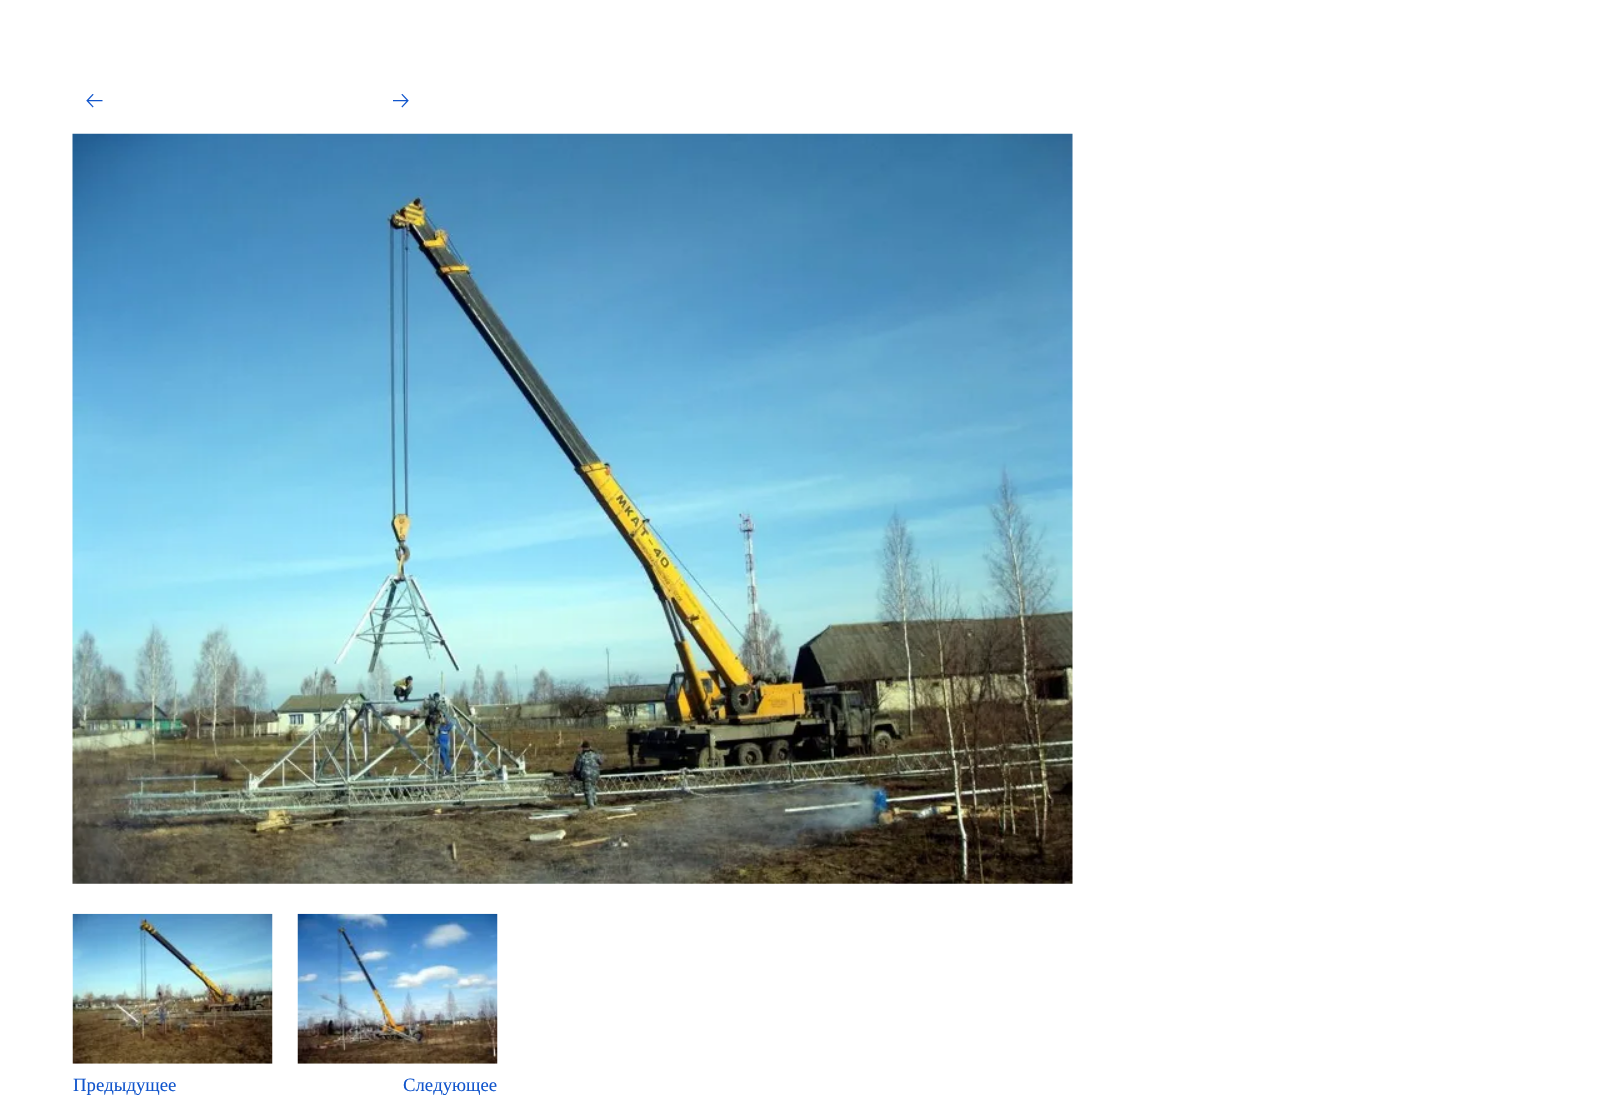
void draw(SkCanvas* canvas) {
  SkPaint paint;
  paint.setAntiAlias(true);
  auto face = [&](const char* family, int weight, float size, bool italic = false) {
    SkFontStyle style(weight, SkFontStyle::kNormal_Width,
      italic ? SkFontStyle::kItalic_Slant : SkFontStyle::kUpright_Slant);
    SkFont result(fontMgr->matchFamilyStyle(family, style), size);
    result.setSubpixel(true);
    return result;
  };
  auto paste = [&](const char* path, float x, float y, float w, float h) {
    auto image = SkImages::DeferredFromEncodedData(SkData::MakeFromFileName(path));
    canvas->drawImageRect(image, SkRect::MakeXYWH(x, y, w, h), SkSamplingOptions());
  };
  canvas->clear(0xffffffff);
  paste("img/1.png", 86, 94, 17, 14);
  paste("img/2.png", 393, 94, 16, 14);
  paste("img/3.png", 72, 133, 1001, 751);
  paste("img/4.png", 72, 913, 201, 151);
  paste("img/5.png", 297, 913, 201, 151);
  auto f0 = face("Liberation Serif", 400, 18.75f);
  paint.setColor(0xff1155cc);
  canvas->drawString("Предыдущее", 73, 1091, f0, paint);
  canvas->drawString("Следующее", 403, 1091, f0, paint);
}
